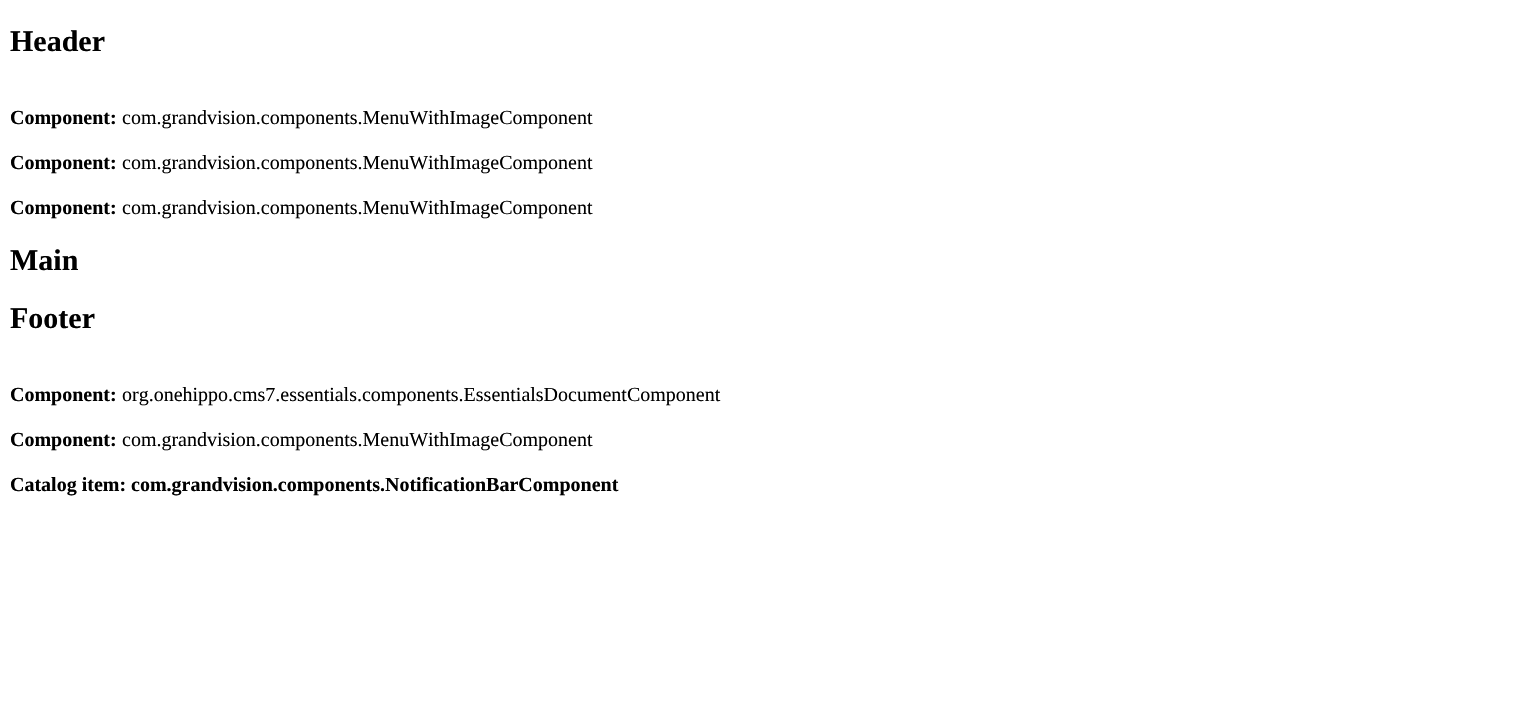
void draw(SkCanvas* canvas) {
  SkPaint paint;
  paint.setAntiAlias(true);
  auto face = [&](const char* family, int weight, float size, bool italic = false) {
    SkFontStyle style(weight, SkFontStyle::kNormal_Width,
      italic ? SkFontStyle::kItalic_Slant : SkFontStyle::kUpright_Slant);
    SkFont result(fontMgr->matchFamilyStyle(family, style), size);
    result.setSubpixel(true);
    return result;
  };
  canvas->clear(0xffffffff);
  auto f0 = face("Liberation Serif", 700, 30);
  paint.setColor(0xff000000);
  canvas->drawString("Header", 10, 51, f0, paint);
  auto f1 = face("Liberation Serif", 700, 20);
  canvas->drawString("Component:", 10, 124, f1, paint);
  auto f2 = face("Liberation Serif", 400, 20);
  canvas->drawString("com.grandvision.components.MenuWithImageComponent", 122, 124, f2, paint);
  canvas->drawString("Component:", 10, 169, f1, paint);
  canvas->drawString("com.grandvision.components.MenuWithImageComponent", 122, 169, f2, paint);
  canvas->drawString("Component:", 10, 214, f1, paint);
  canvas->drawString("com.grandvision.components.MenuWithImageComponent", 122, 214, f2, paint);
  canvas->drawString("Main", 10, 270, f0, paint);
  canvas->drawString("Footer", 10, 328, f0, paint);
  canvas->drawString("Component:", 10, 401, f1, paint);
  canvas->drawString("org.onehippo.cms7.essentials.components.EssentialsDocumentComponent", 122, 401, f2, paint);
  canvas->drawString("Component:", 10, 446, f1, paint);
  canvas->drawString("com.grandvision.components.MenuWithImageComponent", 122, 446, f2, paint);
  canvas->drawString("Catalog item: com.grandvision.components.NotificationBarComponent", 10, 491, f1, paint);
}
